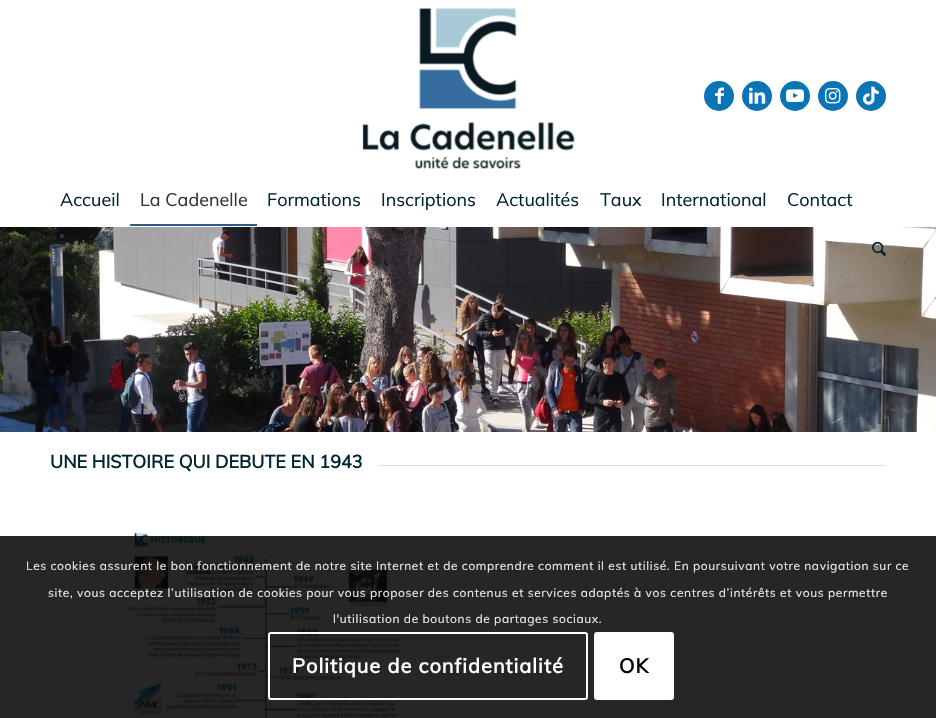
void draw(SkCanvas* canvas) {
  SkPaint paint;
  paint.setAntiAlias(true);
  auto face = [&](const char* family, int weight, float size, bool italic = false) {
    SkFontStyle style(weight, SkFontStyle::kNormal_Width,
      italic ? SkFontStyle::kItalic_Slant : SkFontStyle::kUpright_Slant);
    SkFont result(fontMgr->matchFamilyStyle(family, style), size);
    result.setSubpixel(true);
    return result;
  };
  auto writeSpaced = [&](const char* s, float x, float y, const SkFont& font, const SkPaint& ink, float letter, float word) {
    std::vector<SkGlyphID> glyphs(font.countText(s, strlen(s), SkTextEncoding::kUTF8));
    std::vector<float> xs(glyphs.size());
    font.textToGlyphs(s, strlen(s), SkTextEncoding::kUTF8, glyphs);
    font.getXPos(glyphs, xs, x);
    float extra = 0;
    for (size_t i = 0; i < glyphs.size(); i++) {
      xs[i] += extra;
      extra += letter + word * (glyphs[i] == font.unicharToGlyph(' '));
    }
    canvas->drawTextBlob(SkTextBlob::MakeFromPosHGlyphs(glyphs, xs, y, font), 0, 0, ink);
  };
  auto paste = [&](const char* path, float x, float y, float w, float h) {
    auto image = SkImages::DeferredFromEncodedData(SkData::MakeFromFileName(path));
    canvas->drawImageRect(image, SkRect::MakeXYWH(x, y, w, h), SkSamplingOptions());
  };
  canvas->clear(0xffffffff);
  paint.setColor(0xff262626);
  canvas->drawRect(SkRect::MakeXYWH(0, 536, 936, 182), paint);
  paste("img/1.png", 362, 7, 213, 162);
  paint.setColor(0xff0a75b4);
  canvas->drawCircle(719, 96, 15, paint);
  paste("img/2.png", 715, 87, 9, 17);
  canvas->drawCircle(757, 96, 15, paint);
  paste("img/3.png", 749, 87, 17, 17);
  canvas->drawCircle(795, 96, 15, paint);
  paste("img/4.png", 786, 89, 18, 13);
  canvas->drawCircle(833, 96, 15, paint);
  paste("img/5.png", 825, 88, 16, 16);
  canvas->drawCircle(871, 96, 15, paint);
  paste("img/6.png", 863, 86, 16, 19);
  paint.setColor(0xff2d5c88);
  canvas->drawRect(SkRect::MakeXYWH(130, 224, 127, 2), paint);
  paste("img/8.png", 0, 227, 936, 205);
  paste("img/7.png", 872, 241, 14, 16);
  paint.setColor(0xffd9dee0);
  canvas->drawRect(SkRect::MakeXYWH(378, 465, 508, 1), paint);
  paste("img/9.png", 127, 532, 274, 186);
  paint.setStroke(true);
  paint.setStrokeWidth(2);
  paint.setColor(0xffffffff);
  canvas->drawRoundRect(SkRect::MakeXYWH(269, 633, 318, 66), 2, 2, paint);
  paint.setStroke(false);
  canvas->drawRoundRect(SkRect::MakeXYWH(594, 632, 80, 68), 3, 3, paint);
  auto f0 = face("Muli", 400, 18);
  paint.setColor(0xff022630);
  canvas->drawString("Accueil", 60, 206, f0, paint);
  paint.setColor(0xff333333);
  canvas->drawString("La Cadenelle", 140, 206, f0, paint);
  paint.setColor(0xff022630);
  {
    const struct { const char* s; float x, y; } items[] = {
      {"Formations", 267, 206},
      {"Inscriptions", 381, 206},
      {"Actualités", 496, 206},
      {"Taux", 600, 206},
      {"International", 661, 206},
      {"Contact", 787, 206},
    };
    for (auto [s, x, y] : items) {
      canvas->drawString(s, x, y, f0, paint);
    }
  }
  auto f1 = face("Muli", 700, 18);
  canvas->drawString("UNE HISTOIRE QUI DEBUTE EN 1943", 50, 468, f1, paint);
  auto f2 = face("Muli", 400, 12);
  paint.setColor(0xffe9e9e9);
  {
    const struct { const char* s; float x, y; } items[] = {
      {"Les cookies assurent le bon fonctionnement de notre site Internet et de comprendre comment il est utilisé. En poursuivant votre navigation sur ce", 26, 570},
      {"site, vous acceptez l’utilisation de cookies pour vous proposer des contenus et services adaptés à vos centres d’intérêts et vous permettre", 48, 597},
      {"l'utilisation de boutons de partages sociaux.", 333, 623},
    };
    for (auto [s, x, y] : items) {
      writeSpaced(s, x, y, f2, paint, 0.6f, 0);
    }
  }
  auto f3 = face("Muli", 700, 20);
  paint.setColor(0xffffffff);
  writeSpaced("Politique de confidentialité", 292, 673, f3, paint, 1, 0);
  paint.setColor(0xff000000);
  writeSpaced("OK", 619, 673, f3, paint, 1, 0);
}
